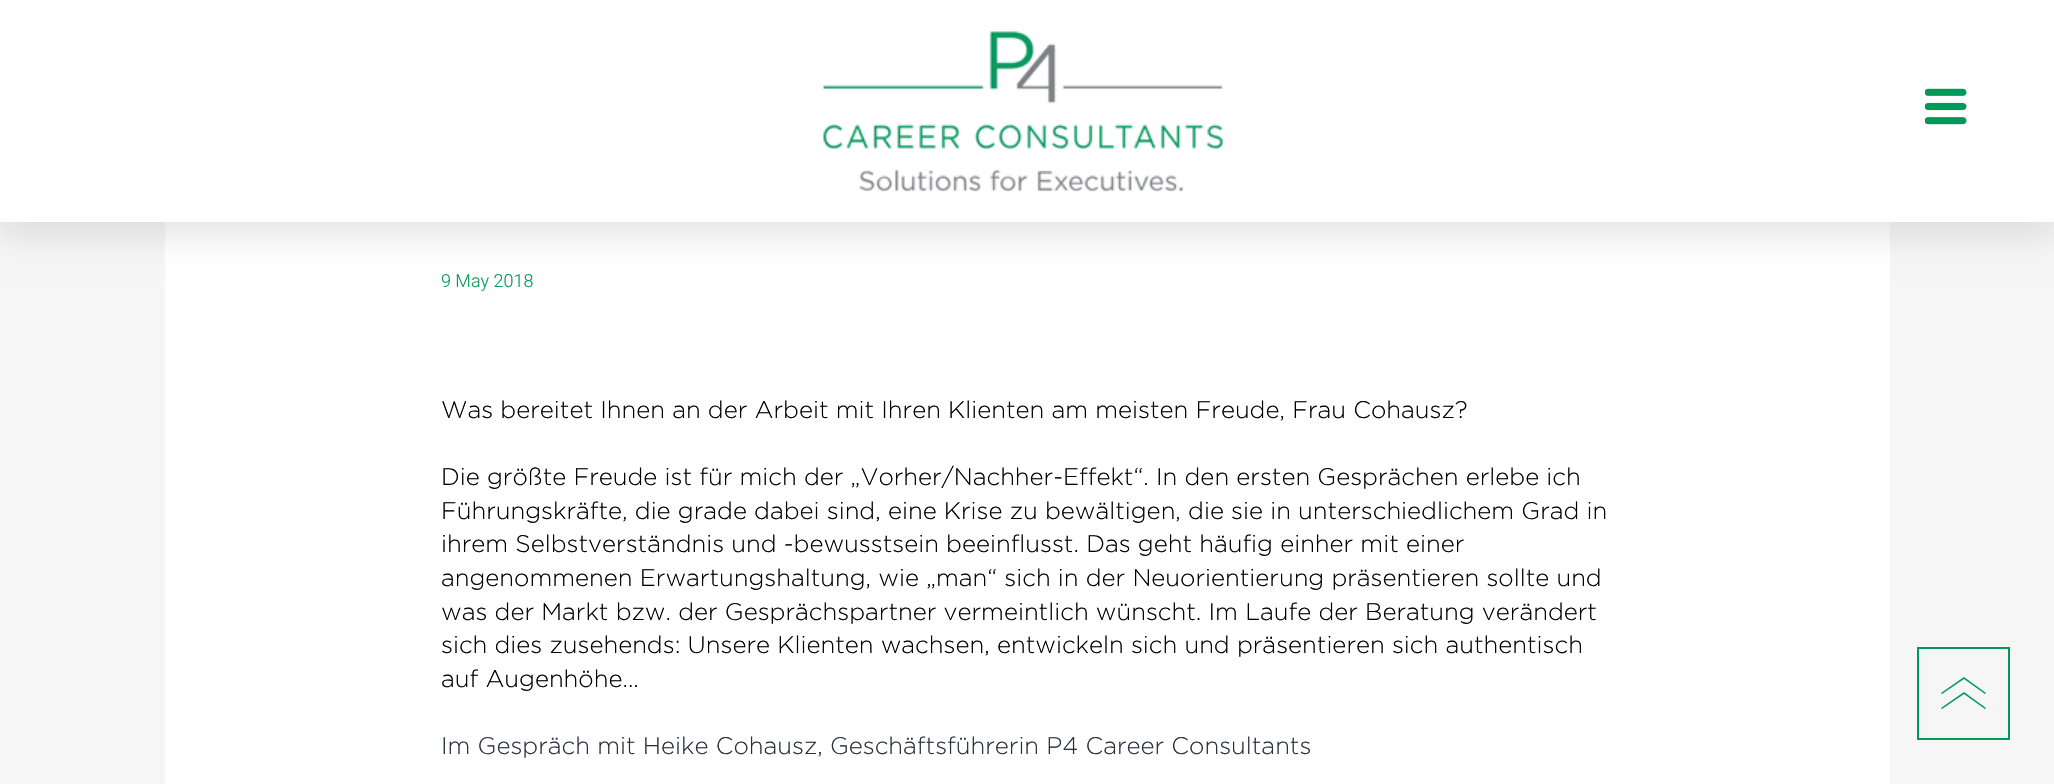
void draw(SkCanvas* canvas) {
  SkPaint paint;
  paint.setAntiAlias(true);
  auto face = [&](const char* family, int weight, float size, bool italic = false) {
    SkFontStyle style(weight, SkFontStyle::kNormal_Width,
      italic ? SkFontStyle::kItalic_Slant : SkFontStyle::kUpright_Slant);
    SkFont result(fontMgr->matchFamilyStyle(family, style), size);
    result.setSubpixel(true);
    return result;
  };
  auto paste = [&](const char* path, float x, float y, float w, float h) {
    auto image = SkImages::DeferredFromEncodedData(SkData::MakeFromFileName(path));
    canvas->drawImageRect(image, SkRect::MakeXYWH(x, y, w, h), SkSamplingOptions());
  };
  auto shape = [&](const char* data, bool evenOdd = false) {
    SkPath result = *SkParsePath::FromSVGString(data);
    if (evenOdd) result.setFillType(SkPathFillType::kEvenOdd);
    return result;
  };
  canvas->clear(0xfff6f6f6);
  paint.setColor(0xffffffff);
  canvas->drawRect(SkRect::MakeXYWH(165, 222, 1725, 562), paint);
  paint.setColor(0x1a000000);
  paint.setMaskFilter(SkMaskFilter::MakeBlur(kNormal_SkBlurStyle, 15));
  canvas->drawRect(SkRect::MakeXYWH(0, 15, 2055, 222), paint);
  paint.setMaskFilter(nullptr);
  paint.setColor(0xffffffff);
  canvas->drawRect(SkRect::MakeXYWH(0, 0, 2054, 222), paint);
  paste("img/1.png", 823, 31, 401, 161);
  paste("img/2.png", 1925, 88, 42, 37);
  paint.setStroke(true);
  paint.setStrokeWidth(2);
  paint.setColor(0xff009959);
  canvas->drawRect(SkRect::MakeXYWH(1918, 648, 91, 91), paint);
  paint.setStroke(false);
  canvas->drawPath(shape("M1964 677L1986 693L1985 694L1964 679L1942 694L1941 693Z"), paint);
  canvas->drawPath(shape("M1964 692L1986 708L1985 709L1964 694L1942 709L1941 708Z"), paint);
  auto f0 = face("Roboto", 300, 18);
  canvas->drawString("9 May 2018", 441, 287, f0, paint);
  auto f1 = face("Gotham", 300, 24);
  paint.setColor(0xff000000);
  {
    const struct { const char* s; float x, y; } items[] = {
      {"Was bereitet Ihnen an der Arbeit mit Ihren Klienten am meisten Freude, Frau Cohausz?", 441, 418},
      {"Die größte Freude ist für mich der „Vorher/Nachher-Effekt“. In den ersten Gesprächen erlebe ich", 441, 485},
      {"Führungskräfte, die grade dabei sind, eine Krise zu bewältigen, die sie in unterschiedlichem Grad in", 441, 519},
      {"ihrem Selbstverständnis und -bewusstsein beeinflusst. Das geht häufig einher mit einer", 441, 552},
      {"angenommenen Erwartungshaltung, wie „man“ sich in der Neuorientierung präsentieren sollte und", 441, 586},
      {"was der Markt bzw. der Gesprächspartner vermeintlich wünscht. Im Laufe der Beratung verändert", 441, 620},
      {"sich dies zusehends: Unsere Klienten wachsen, entwickeln sich und präsentieren sich authentisch", 441, 653},
      {"auf Augenhöhe…", 441, 687},
    };
    for (auto [s, x, y] : items) {
      canvas->drawString(s, x, y, f1, paint);
    }
  }
  paint.setColor(0xff28303d);
  canvas->drawString("Im Gespräch mit Heike Cohausz, Geschäftsführerin P4 Career Consultants", 441, 754, f1, paint);
}
